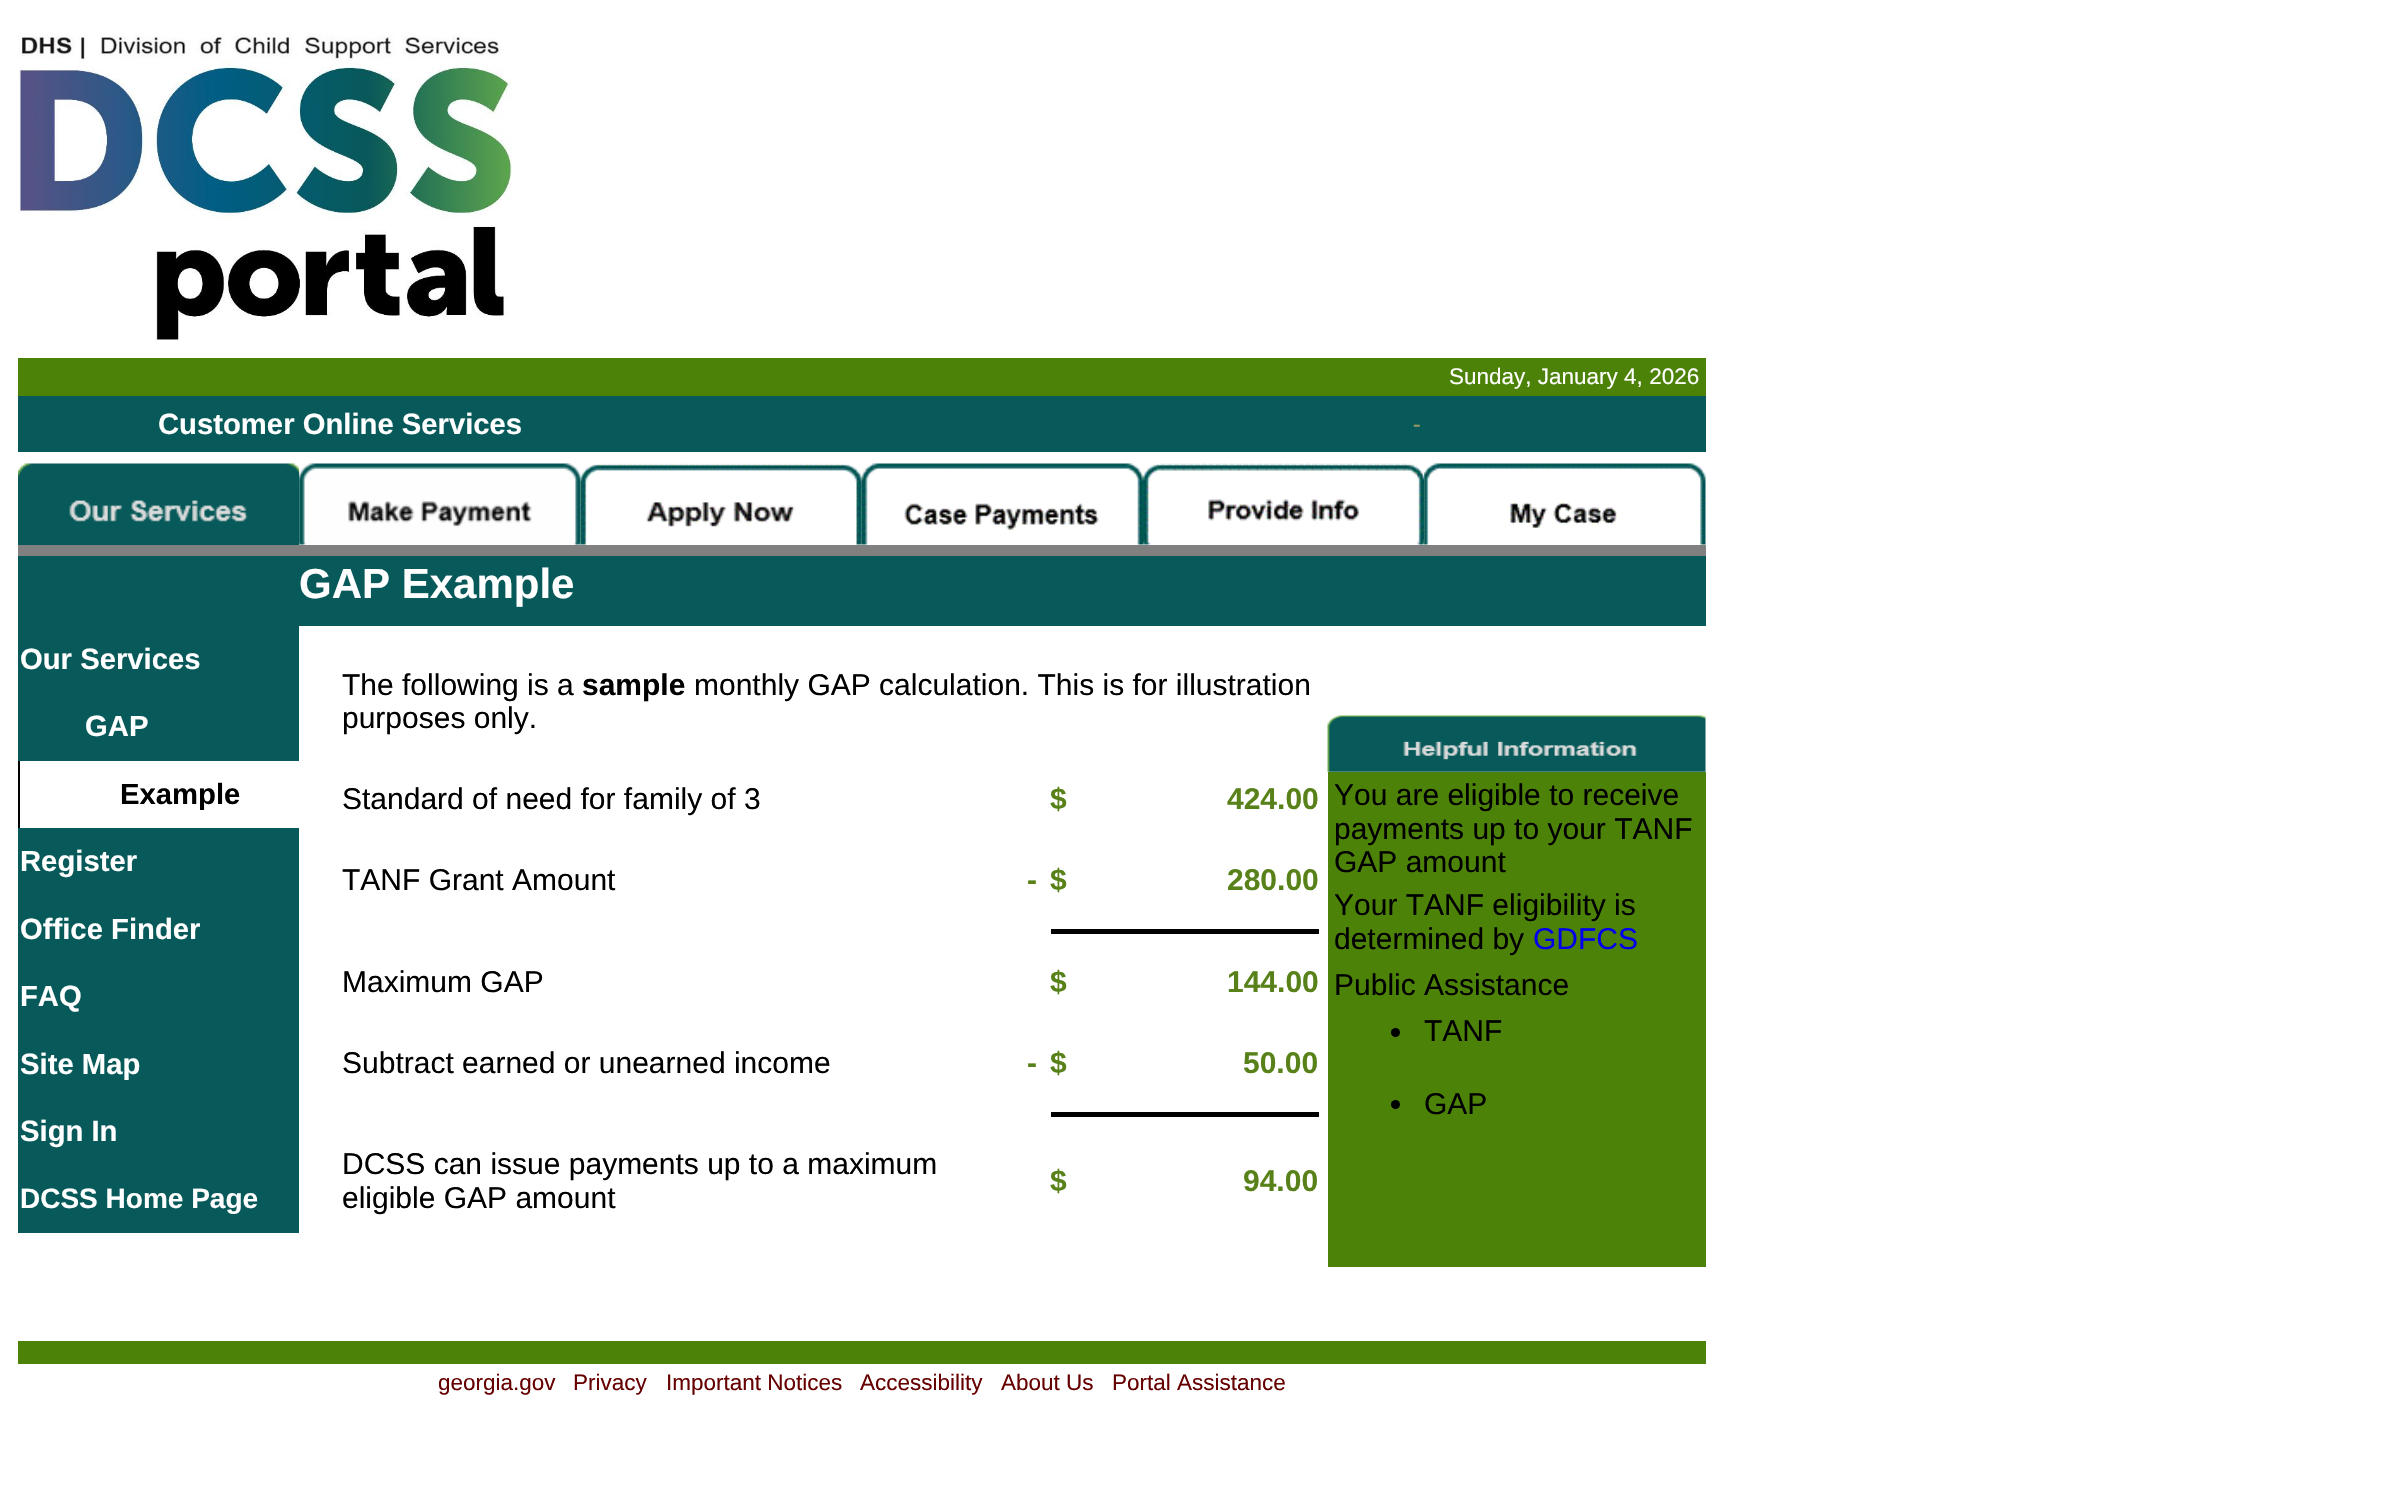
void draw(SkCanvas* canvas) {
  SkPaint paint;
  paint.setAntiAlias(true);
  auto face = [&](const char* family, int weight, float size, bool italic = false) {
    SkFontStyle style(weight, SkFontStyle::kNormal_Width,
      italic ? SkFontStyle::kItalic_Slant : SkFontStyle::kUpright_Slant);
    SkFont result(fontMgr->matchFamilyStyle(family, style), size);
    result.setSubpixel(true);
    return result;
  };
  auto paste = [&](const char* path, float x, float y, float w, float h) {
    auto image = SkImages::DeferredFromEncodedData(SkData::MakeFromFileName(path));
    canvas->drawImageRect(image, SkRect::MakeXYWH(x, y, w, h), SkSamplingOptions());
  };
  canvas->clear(0xffffffff);
  paste("img/1.png", 18, 33, 495, 307);
  {
    const struct { float x, y, w, h; SkColor color; } items[] = {
      {18, 358, 1688, 38, 0xff4d8208},
      {18, 396, 1688, 56, 0xff085959},
      {18, 544, 281, 1, 0xff085959},
    };
    for (auto [x, y, w, h, color] : items) {
      paint.setColor(color);
      canvas->drawRect(SkRect::MakeXYWH(x, y, w, h), paint);
    }
  }
  paste("img/2.png", 18, 463, 282, 82);
  paste("img/3.png", 299, 463, 282, 82);
  paste("img/4.png", 580, 463, 282, 82);
  paste("img/5.png", 861, 463, 282, 82);
  paste("img/6.png", 1143, 463, 282, 82);
  paste("img/7.png", 1424, 463, 282, 82);
  {
    const struct { float x, y, w, h; SkColor color; } items[] = {
      {18, 556, 1688, 70, 0xff085959},
      {18, 545, 1688, 11, 0xff808080},
      {18, 626, 281, 135, 0xff085959},
      {18, 761, 2, 67, 0xff000000},
      {18, 828, 281, 405, 0xff085959},
      {1051, 929, 268, 5, 0xff000000},
      {1051, 1112, 268, 5, 0xff000000},
    };
    for (auto [x, y, w, h, color] : items) {
      paint.setColor(color);
      canvas->drawRect(SkRect::MakeXYWH(x, y, w, h), paint);
    }
  }
  paste("img/8.png", 1327, 715, 379, 57);
  paint.setColor(0xff4d8208);
  canvas->drawRect(SkRect::MakeXYWH(1328, 772, 378, 495), paint);
  paint.setColor(0xff000000);
  canvas->drawCircle(1395.5f, 1032.5f, 4.5f, paint);
  canvas->drawCircle(1395.5f, 1104.5f, 4.5f, paint);
  paint.setColor(0xff4d8208);
  canvas->drawRect(SkRect::MakeXYWH(18, 1341, 1688, 23), paint);
  auto f0 = face("Liberation Sans", 400, 22.5f);
  paint.setColor(0xffffffff);
  canvas->drawString("Sunday, January 4, 2026", 1449, 384, f0, paint);
  auto f1 = face("Liberation Sans", 700, 29.25f);
  canvas->drawString("Customer Online Services", 158, 434, f1, paint);
  auto f2 = face("Liberation Serif", 700, 22.5f);
  paint.setColor(0xff999966);
  canvas->drawString("-", 1413, 431, f2, paint);
  auto f3 = face("Liberation Sans", 700, 42);
  paint.setColor(0xffffffff);
  canvas->drawString("GAP Example", 299, 598, f3, paint);
  canvas->drawString("Our Services", 20, 669, f1, paint);
  canvas->drawString("GAP", 85, 736, f1, paint);
  paint.setColor(0xff000000);
  canvas->drawString("Example", 120, 804, f1, paint);
  paint.setColor(0xffffffff);
  {
    const struct { const char* s; float x, y; } items[] = {
      {"Register", 20, 871},
      {"Office Finder", 20, 939},
      {"FAQ", 20, 1006},
      {"Site Map", 20, 1074},
      {"Sign In", 20, 1141},
    };
    for (auto [s, x, y] : items) {
      canvas->drawString(s, x, y, f1, paint);
    }
  }
  auto f4 = face("Liberation Sans", 700, 28);
  canvas->drawString("DCSS Home Page", 20, 1208, f4, paint);
  auto f5 = face("Liberation Sans", 400, 30);
  paint.setColor(0xff000000);
  canvas->drawString("The following is a", 342, 695, f5, paint);
  auto f6 = face("Liberation Sans", 700, 30);
  canvas->drawString("sample", 582, 695, f6, paint);
  {
    const struct { const char* s; float x, y; } items[] = {
      {"monthly GAP calculation. This is for illustration", 694, 695},
      {"purposes only.", 342, 728},
      {"Standard of need for family of 3", 342, 809},
    };
    for (auto [s, x, y] : items) {
      canvas->drawString(s, x, y, f5, paint);
    }
  }
  paint.setColor(0xff588219);
  {
    const struct { const char* s; float x, y; } items[] = {
      {"$", 1050, 809},
      {"424.00", 1227, 809},
      {"-", 1027, 890},
    };
    for (auto [s, x, y] : items) {
      canvas->drawString(s, x, y, f6, paint);
    }
  }
  paint.setColor(0xff000000);
  canvas->drawString("TANF Grant Amount", 342, 890, f5, paint);
  paint.setColor(0xff588219);
  canvas->drawString("$", 1050, 890, f6, paint);
  canvas->drawString("280.00", 1227, 890, f6, paint);
  paint.setColor(0xff000000);
  canvas->drawString("Maximum GAP", 342, 992, f5, paint);
  paint.setColor(0xff588219);
  {
    const struct { const char* s; float x, y; } items[] = {
      {"$", 1050, 992},
      {"144.00", 1227, 992},
      {"-", 1027, 1073},
    };
    for (auto [s, x, y] : items) {
      canvas->drawString(s, x, y, f6, paint);
    }
  }
  paint.setColor(0xff000000);
  canvas->drawString("Subtract earned or unearned income", 342, 1073, f5, paint);
  paint.setColor(0xff588219);
  canvas->drawString("$", 1050, 1073, f6, paint);
  canvas->drawString("50.00", 1243, 1073, f6, paint);
  paint.setColor(0xff000000);
  canvas->drawString("DCSS can issue payments up to a maximum", 342, 1174, f5, paint);
  canvas->drawString("eligible GAP amount", 342, 1208, f5, paint);
  paint.setColor(0xff588219);
  canvas->drawString("$", 1050, 1191, f6, paint);
  canvas->drawString("94.00", 1243, 1191, f6, paint);
  paint.setColor(0xff000000);
  {
    const struct { const char* s; float x, y; } items[] = {
      {"You are eligible to receive", 1334, 805},
      {"payments up to your TANF", 1334, 839},
      {"GAP amount", 1334, 872},
      {"Your TANF eligibility is", 1334, 915},
      {"determined by", 1334, 949},
    };
    for (auto [s, x, y] : items) {
      canvas->drawString(s, x, y, f5, paint);
    }
  }
  paint.setColor(0xff0000ee);
  canvas->drawString("GDFCS", 1533, 949, f5, paint);
  paint.setColor(0xff000000);
  {
    const struct { const char* s; float x, y; } items[] = {
      {"Public Assistance", 1334, 995},
      {"TANF", 1424, 1041},
      {"GAP", 1424, 1114},
    };
    for (auto [s, x, y] : items) {
      canvas->drawString(s, x, y, f5, paint);
    }
  }
  paint.setColor(0xff660000);
  {
    const struct { const char* s; float x, y; } items[] = {
      {"georgia.gov", 438, 1390},
      {"Privacy", 573, 1390},
      {"Important Notices", 666, 1390},
      {"Accessibility", 860, 1390},
      {"About Us", 1001, 1390},
      {"Portal Assistance", 1112, 1390},
    };
    for (auto [s, x, y] : items) {
      canvas->drawString(s, x, y, f0, paint);
    }
  }
}
